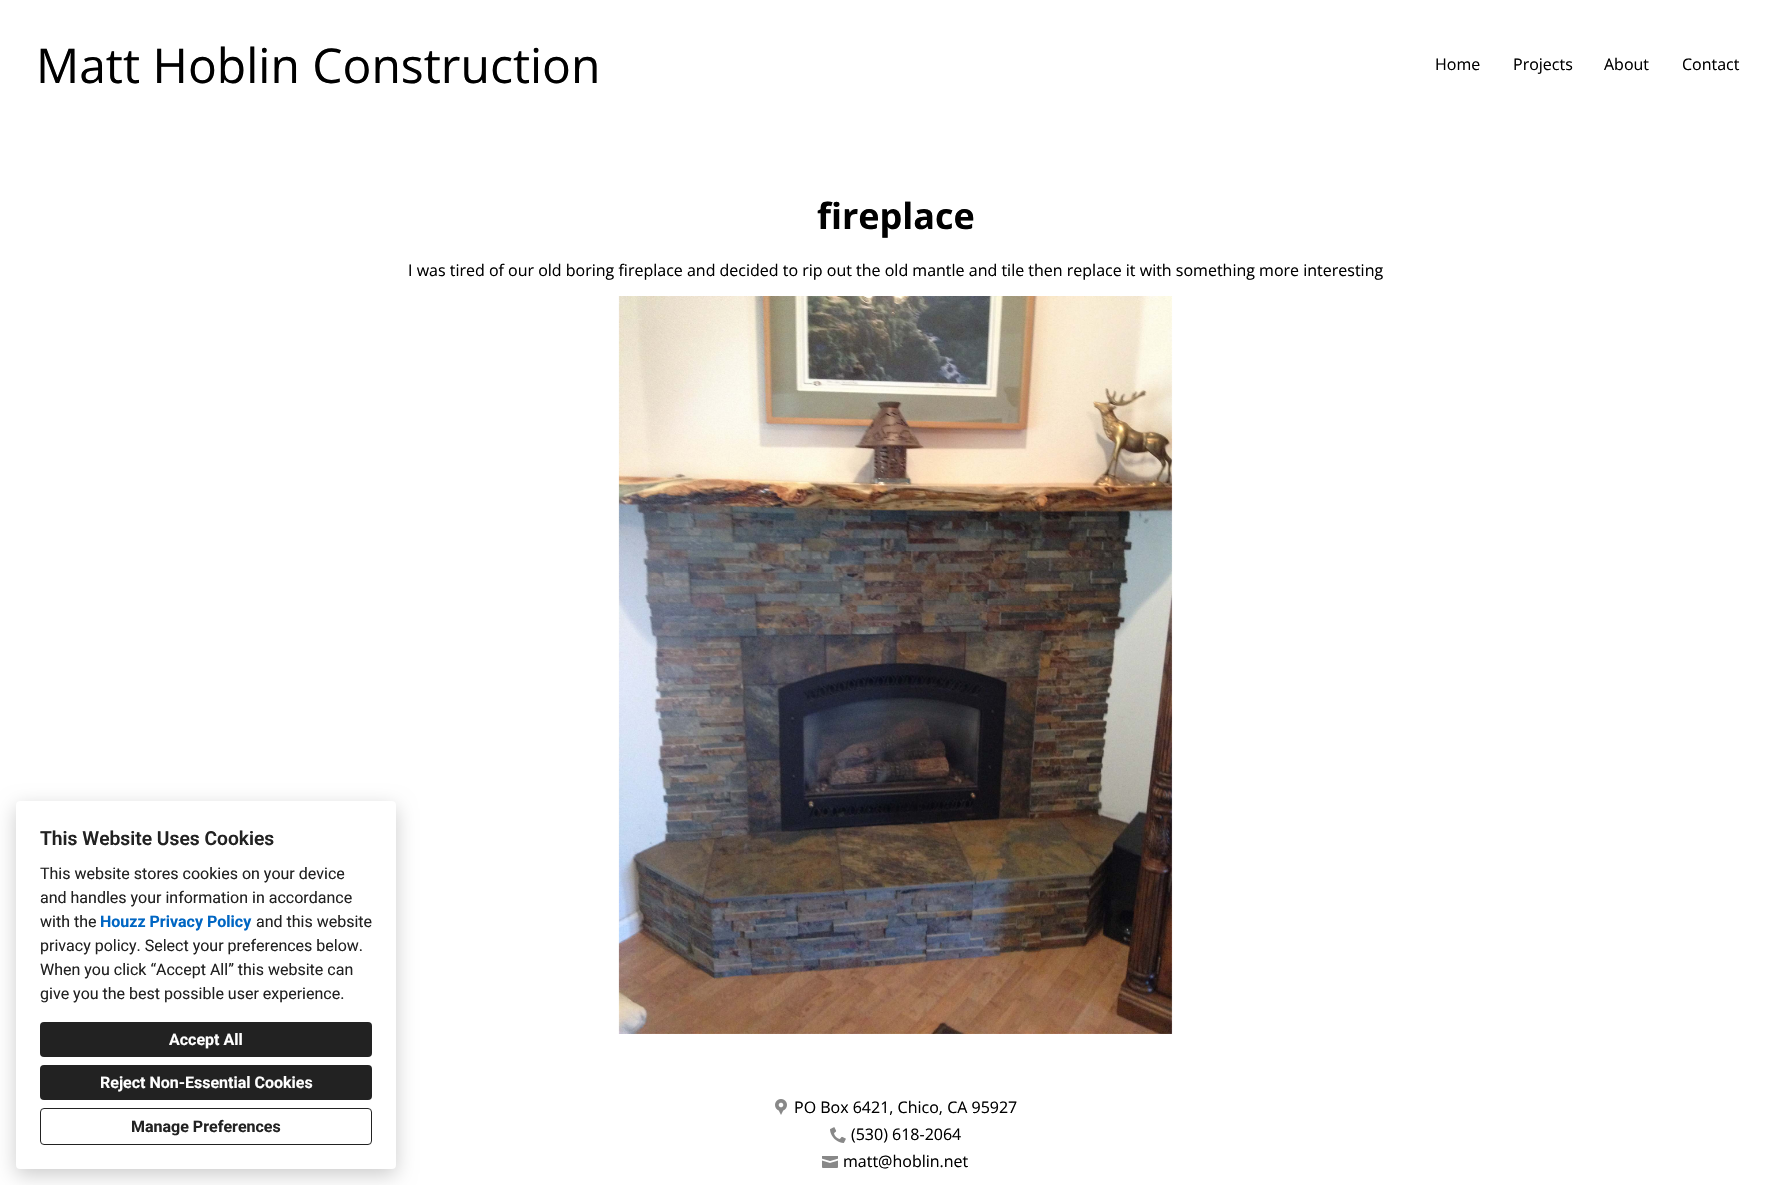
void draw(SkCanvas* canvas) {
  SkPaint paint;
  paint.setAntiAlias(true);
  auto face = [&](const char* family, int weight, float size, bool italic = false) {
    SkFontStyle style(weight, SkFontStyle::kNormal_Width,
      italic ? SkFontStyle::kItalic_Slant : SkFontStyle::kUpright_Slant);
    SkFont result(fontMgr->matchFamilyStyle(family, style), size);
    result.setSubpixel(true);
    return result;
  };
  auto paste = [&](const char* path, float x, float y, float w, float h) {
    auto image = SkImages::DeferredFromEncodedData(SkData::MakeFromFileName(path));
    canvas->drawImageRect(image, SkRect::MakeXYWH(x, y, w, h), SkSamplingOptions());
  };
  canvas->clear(0xffffffff);
  paste("img/1.png", 618, 296, 555, 738);
  paste("img/2.png", 775, 1099, 12, 16);
  paste("img/3.png", 830, 1127, 16, 16);
  paste("img/4.png", 822, 1156, 16, 12);
  paint.setColor(0x33000000);
  paint.setMaskFilter(SkMaskFilter::MakeBlur(kNormal_SkBlurStyle, 10));
  canvas->drawRoundRect(SkRect::MakeXYWH(16, 807, 380, 368), 4, 4, paint);
  paint.setMaskFilter(nullptr);
  paint.setColor(0xffffffff);
  canvas->drawRoundRect(SkRect::MakeXYWH(16, 801, 380, 368), 4, 4, paint);
  paint.setColor(0xff222222);
  canvas->drawRoundRect(SkRect::MakeXYWH(40, 1022, 332, 35), 4, 4, paint);
  canvas->drawRoundRect(SkRect::MakeXYWH(40, 1065, 332, 35), 4, 4, paint);
  paint.setStroke(true);
  paint.setStrokeWidth(1);
  canvas->drawRoundRect(SkRect::MakeXYWH(40.5f, 1108.5f, 331, 36), 3.5f, 3.5f, paint);
  auto f0 = face("Open Sans", 400, 48);
  paint.setStroke(false);
  paint.setColor(0xff000000);
  canvas->drawString("Matt Hoblin Construction", 36, 83, f0, paint);
  auto f1 = face("Open Sans", 400, 16);
  {
    const struct { const char* s; float x, y; } items[] = {
      {"Home", 1435, 70},
      {"Projects", 1513, 70},
      {"About", 1604, 70},
      {"Contact", 1682, 70},
    };
    for (auto [s, x, y] : items) {
      canvas->drawString(s, x, y, f1, paint);
    }
  }
  auto f2 = face("Open Sans", 700, 36);
  canvas->drawString("fireplace", 817, 229, f2, paint);
  {
    const struct { const char* s; float x, y; } items[] = {
      {"I was tired of our old boring fireplace and decided to rip out the old mantle and tile then replace it with something more interesting", 408, 276},
      {"PO Box 6421, Chico, CA 95927", 794, 1113},
      {"(530) 618-2064", 851, 1140},
      {"matt@hoblin.net", 843, 1167},
    };
    for (auto [s, x, y] : items) {
      canvas->drawString(s, x, y, f1, paint);
    }
  }
  auto f3 = face("Roboto", 600, 19.25f);
  paint.setColor(0xff222222);
  canvas->drawString("This Website Uses Cookies", 40, 845, f3, paint);
  auto f4 = face("Roboto", 400, 16);
  {
    const struct { const char* s; float x, y; } items[] = {
      {"This website stores cookies on your device", 40, 879},
      {"and handles your information in accordance", 40, 903},
      {"with the", 40, 927},
    };
    for (auto [s, x, y] : items) {
      canvas->drawString(s, x, y, f4, paint);
    }
  }
  auto f5 = face("Roboto", 700, 16);
  paint.setColor(0xff0066c3);
  canvas->drawString("Houzz Privacy Policy", 100, 927, f5, paint);
  paint.setColor(0xff222222);
  {
    const struct { const char* s; float x, y; } items[] = {
      {"and this website", 256, 927},
      {"privacy policy. Select your preferences below.", 40, 951},
      {"When you click “Accept All” this website can", 40, 975},
      {"give you the best possible user experience.", 40, 999},
    };
    for (auto [s, x, y] : items) {
      canvas->drawString(s, x, y, f4, paint);
    }
  }
  paint.setColor(0xffffffff);
  canvas->drawString("Accept All", 169, 1045, f5, paint);
  canvas->drawString("Reject Non-Essential Cookies", 100, 1088, f5, paint);
  paint.setColor(0xff222222);
  canvas->drawString("Manage Preferences", 131, 1132, f5, paint);
}
